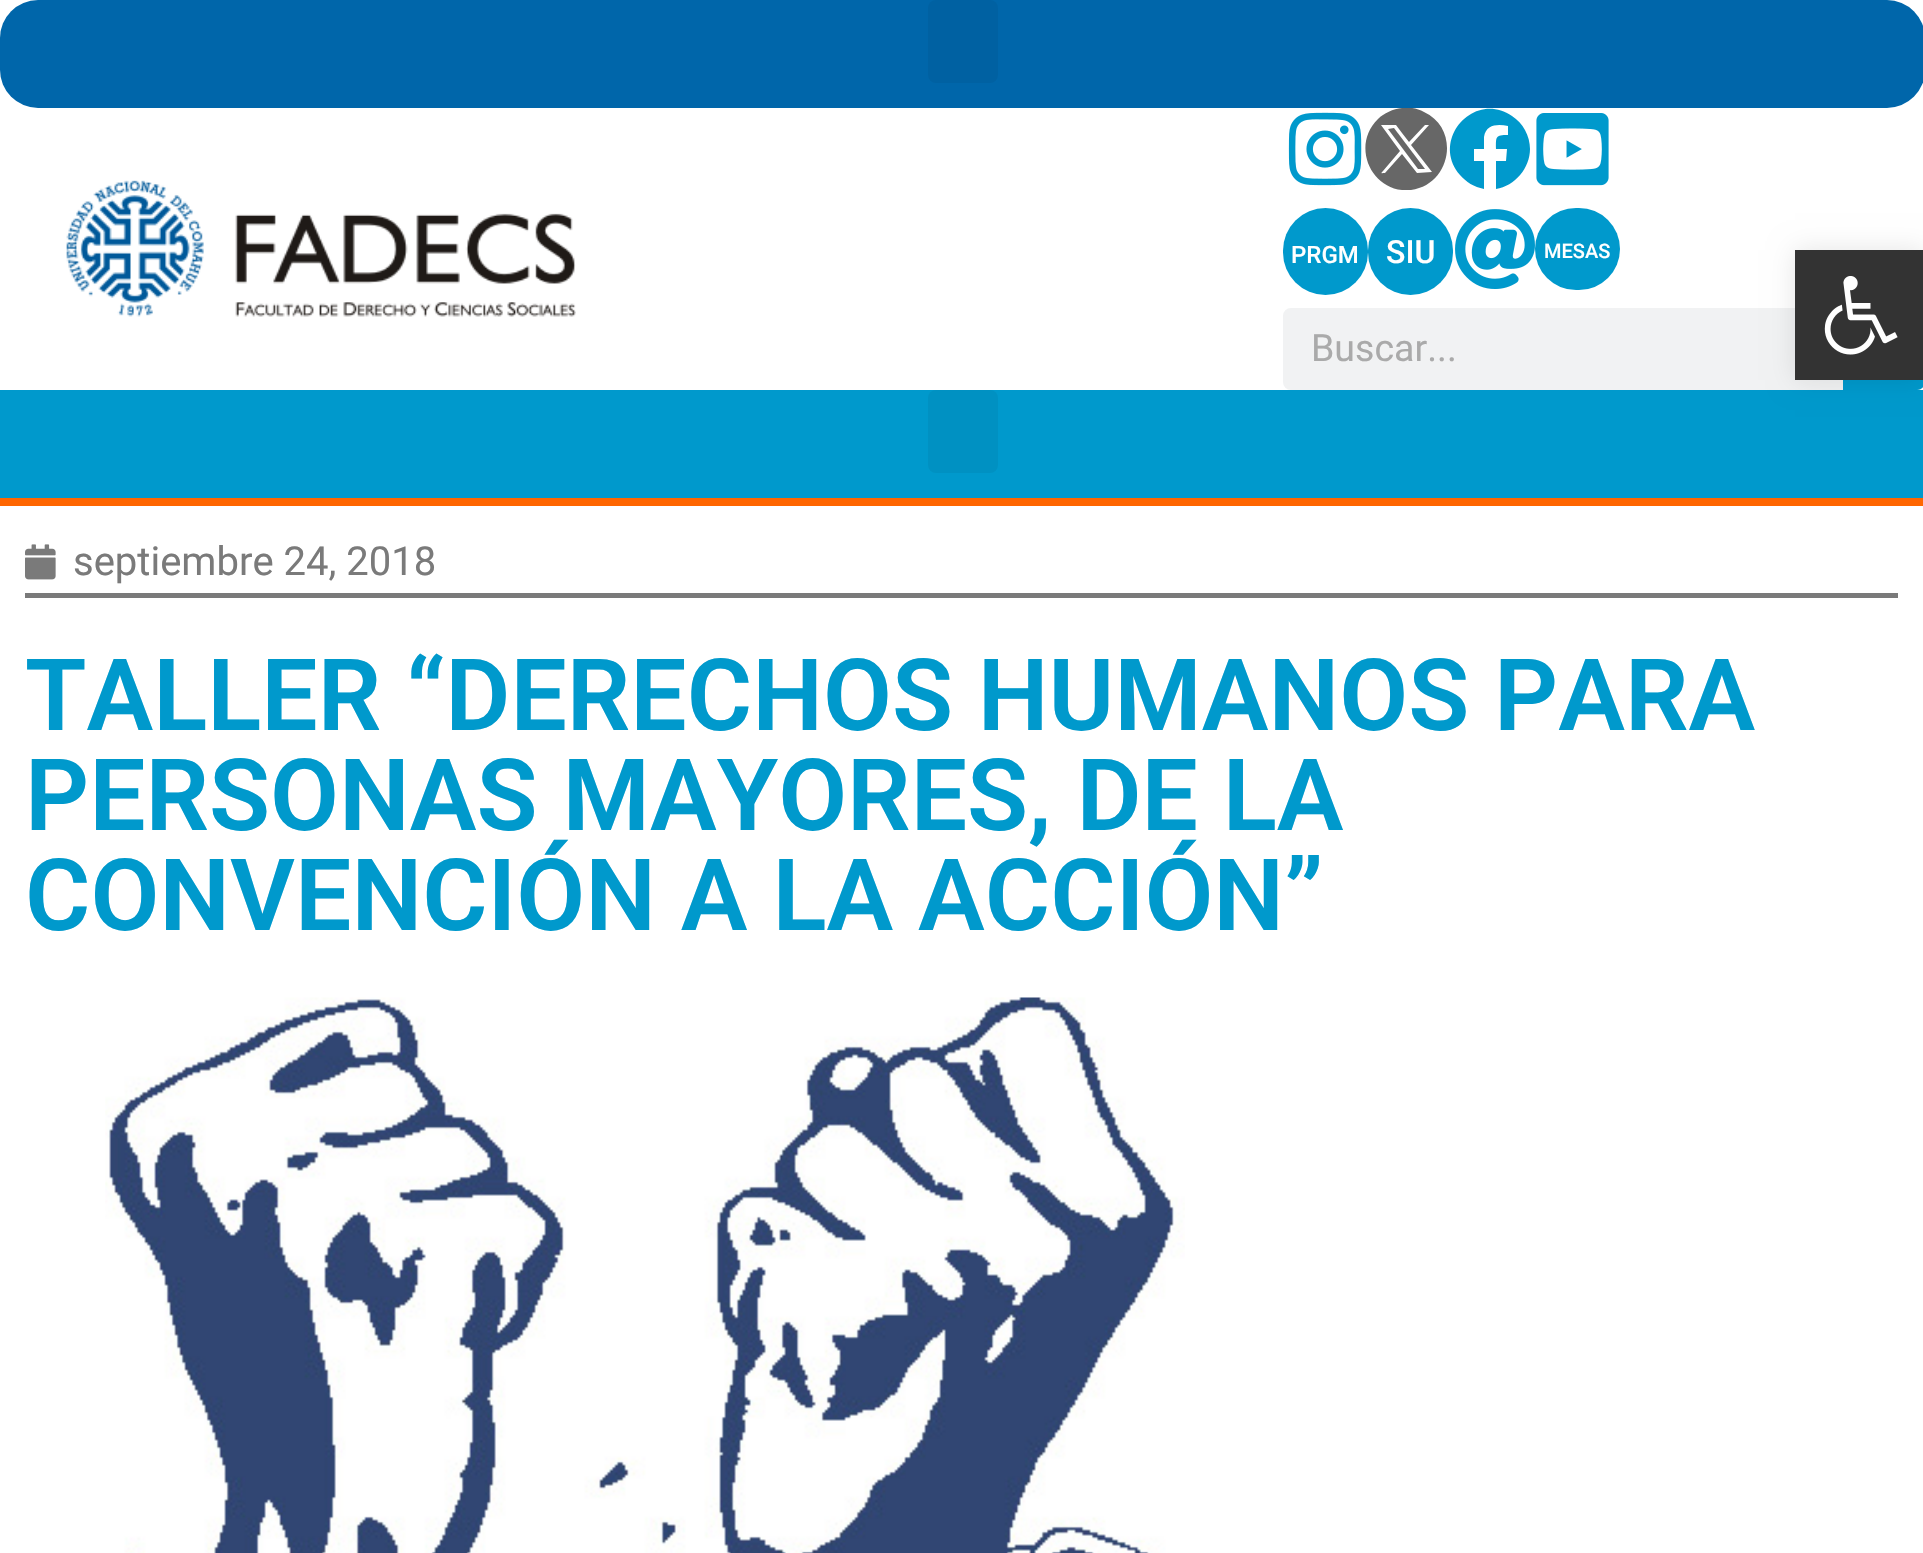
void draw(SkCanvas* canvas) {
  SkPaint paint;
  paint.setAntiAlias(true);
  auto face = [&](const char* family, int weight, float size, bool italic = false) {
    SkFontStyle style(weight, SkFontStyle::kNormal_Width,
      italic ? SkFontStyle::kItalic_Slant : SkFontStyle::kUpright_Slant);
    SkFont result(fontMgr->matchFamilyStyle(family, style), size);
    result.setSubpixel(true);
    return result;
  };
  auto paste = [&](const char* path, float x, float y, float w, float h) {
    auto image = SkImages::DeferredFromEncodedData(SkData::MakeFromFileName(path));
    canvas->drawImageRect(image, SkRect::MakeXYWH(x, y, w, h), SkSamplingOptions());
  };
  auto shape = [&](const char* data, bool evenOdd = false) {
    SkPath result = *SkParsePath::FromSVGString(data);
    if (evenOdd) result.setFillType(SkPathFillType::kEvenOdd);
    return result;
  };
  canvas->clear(0xffffffff);
  paint.setColor(0xff0066aa);
  canvas->drawRoundRect(SkRect::MakeXYWH(0, 0, 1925, 108), 38, 38, paint);
  paint.setColor(0xff0061a2);
  canvas->drawRoundRect(SkRect::MakeXYWH(928, 0, 70, 83), 8, 8, paint);
  paste("img/1.png", 66, 180, 510, 137);
  paste("img/2.png", 1288, 112, 74, 74);
  canvas->save();
  canvas->clipRect(SkRect::MakeXYWH(1365, 108, 83, 82));
  paint.setColor(0xff676767);
  canvas->drawPath(shape("M1402 108C1393 109 1384 113 1378 119C1350 146 1372 194 1411 190C1451 185 1461 129 1424 112C1417 108 1409 107 1402 108ZM1402 133L1409 142L1425 125H1429L1411 145L1432 172L1417 173L1402 154L1385 173C1382 173 1380 174 1383 171L1400 151L1381 125H1396Z"), paint);
  canvas->restore();
  canvas->drawPath(shape("M1388 129L1418 169H1425L1394 128Z"), paint);
  paint.setColor(0xff0099cc);
  canvas->drawPath(shape("M1530 149C1530 168 1515 186 1496 189V161H1506L1507 149H1496C1496 137 1495 135 1508 135V126C1498 124 1486 124 1484 137V149H1474V161H1484V189C1474 187 1466 182 1460 175C1430 140 1474 90 1512 116C1523 123 1530 136 1530 149Z"), paint);
  paste("img/3.png", 1536, 113, 73, 73);
  canvas->drawRoundRect(SkRect::MakeXYWH(1283, 208, 85, 87), 42.5f, 42.5f, paint);
  canvas->drawRoundRect(SkRect::MakeXYWH(1368, 208, 85, 87), 42.5f, 42.5f, paint);
  paste("img/4.png", 1455, 209, 80, 80);
  canvas->drawRoundRect(SkRect::MakeXYWH(1535, 208, 85, 82), 41, 41, paint);
  paint.setColor(0xfff1f2f3);
  canvas->drawRoundRect(SkRect::MakeXYWH(1283, 308, 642, 82), 8, 8, paint);
  paint.setColor(0xff0099cc);
  canvas->drawPath(shape("M1843 308H1917C1921.5 308 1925 311.5 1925 316V382C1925 386.5 1921.5 390 1917 390H1843Z"), paint);
  canvas->drawRect(SkRect::MakeXYWH(0, 390, 1923, 108), paint);
  paint.setColor(0xffff6600);
  canvas->drawRect(SkRect::MakeXYWH(0, 498, 1923, 8), paint);
  paint.setColor(0xff0091c2);
  canvas->drawRoundRect(SkRect::MakeXYWH(928, 390, 70, 83), 8, 8, paint);
  paint.setColor(0x1a000000);
  paint.setMaskFilter(SkMaskFilter::MakeBlur(kNormal_SkBlurStyle, 12.5f));
  canvas->drawRect(SkRect::MakeXYWH(1795, 250, 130, 130), paint);
  paint.setMaskFilter(nullptr);
  paint.setColor(0xff333333);
  canvas->drawRect(SkRect::MakeXYWH(1795, 250, 128, 130), paint);
  paste("img/5.png", 1824, 276, 74, 79);
  paint.setColor(0xff7a7a7a);
  canvas->drawRect(SkRect::MakeXYWH(25, 593, 1873, 5), paint);
  paste("img/6.png", 25, 544, 31, 36);
  paste("img/7.png", 105, 997, 1080, 556);
  auto f0 = face("Roboto", 500, 24);
  paint.setColor(0xffffffff);
  canvas->drawString("PRGM", 1291, 263, f0, paint);
  auto f1 = face("Roboto", 500, 32);
  canvas->drawString("SIU", 1386, 263, f1, paint);
  auto f2 = face("Roboto", 500, 20);
  canvas->drawString("MESAS", 1544, 258, f2, paint);
  auto f3 = face("Roboto", 400, 37.5f);
  paint.setColor(0xffaaaaaa);
  canvas->drawString("Buscar...", 1311, 361, f3, paint);
  auto f4 = face("Roboto", 400, 40);
  paint.setColor(0xff7a7a7a);
  canvas->drawString("septiembre 24, 2018", 73, 575, f4, paint);
  auto f5 = face("Roboto", 600, 100);
  paint.setColor(0xff0099cc);
  {
    const struct { const char* s; float x, y; } items[] = {
      {"TALLER “DERECHOS HUMANOS PARA", 25, 730},
      {"PERSONAS MAYORES, DE LA", 25, 830},
      {"CONVENCIÓN A LA ACCIÓN”", 25, 930},
    };
    for (auto [s, x, y] : items) {
      canvas->drawString(s, x, y, f5, paint);
    }
  }
}
